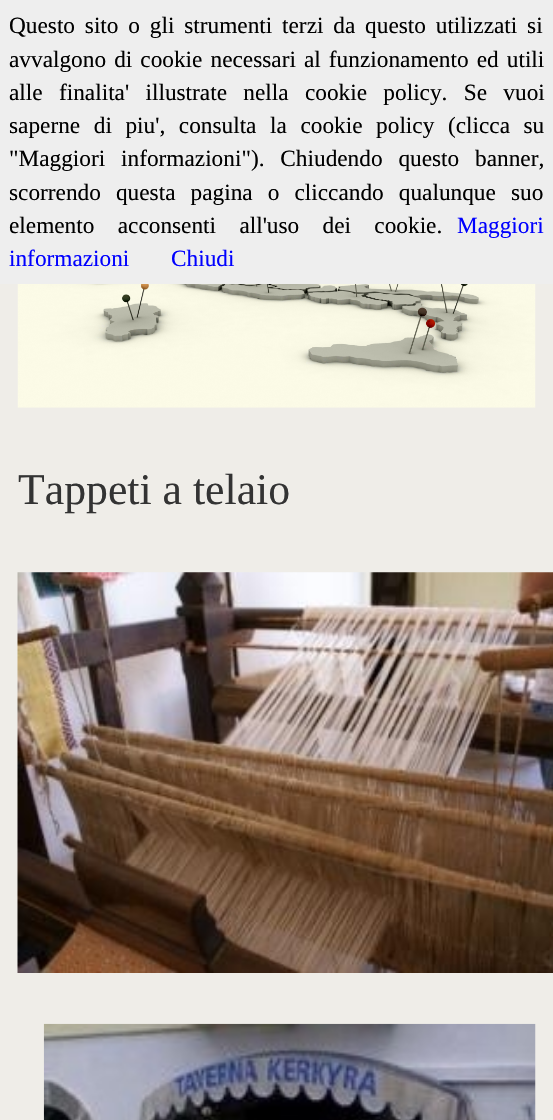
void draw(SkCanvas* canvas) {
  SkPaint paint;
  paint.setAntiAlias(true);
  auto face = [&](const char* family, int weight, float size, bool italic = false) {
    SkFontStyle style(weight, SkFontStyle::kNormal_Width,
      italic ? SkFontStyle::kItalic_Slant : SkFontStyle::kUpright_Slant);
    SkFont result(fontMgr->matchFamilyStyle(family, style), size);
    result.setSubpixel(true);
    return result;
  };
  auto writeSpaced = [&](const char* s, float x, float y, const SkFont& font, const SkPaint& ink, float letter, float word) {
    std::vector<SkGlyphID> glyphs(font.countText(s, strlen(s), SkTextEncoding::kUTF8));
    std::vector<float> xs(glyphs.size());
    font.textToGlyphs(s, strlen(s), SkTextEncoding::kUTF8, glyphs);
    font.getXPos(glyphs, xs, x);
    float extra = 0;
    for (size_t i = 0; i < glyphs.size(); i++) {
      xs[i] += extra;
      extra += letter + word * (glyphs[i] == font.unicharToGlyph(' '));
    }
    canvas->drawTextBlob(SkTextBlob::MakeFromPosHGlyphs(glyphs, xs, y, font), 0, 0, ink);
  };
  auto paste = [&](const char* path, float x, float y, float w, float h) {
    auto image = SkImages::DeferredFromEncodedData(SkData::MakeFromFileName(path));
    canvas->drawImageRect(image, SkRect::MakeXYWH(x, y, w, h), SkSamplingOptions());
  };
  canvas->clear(0xffefede8);
  paint.setColor(0xffeeeeee);
  canvas->drawRect(SkRect::MakeXYWH(0, 0, 553, 284), paint);
  paste("img/1.png", 17, 284, 519, 124);
  paste("img/2.png", 17, 572, 536, 401);
  paste("img/3.png", 43, 1023, 493, 97);
  auto f0 = face("Liberation Serif", 400, 23.3f);
  paint.setColor(0xff000000);
  writeSpaced("Questo sito o gli strumenti terzi da questo utilizzati si", 9, 33, f0, paint, 0, 4);
  writeSpaced("avvalgono di cookie necessari al funzionamento ed utili", 9, 67, f0, paint, 0, 2.25f);
  writeSpaced("alle finalita' illustrate nella cookie policy. Se vuoi", 9, 100, f0, paint, 0, 10.5f);
  writeSpaced("saperne di piu', consulta la cookie policy (clicca su", 9, 133, f0, paint, 0, 7.75f);
  writeSpaced("\"Maggiori informazioni\"). Chiudendo questo banner,", 9, 166, f0, paint, 0, 10);
  writeSpaced("scorrendo questa pagina o cliccando qualunque suo", 9, 200, f0, paint, 0, 9.25f);
  writeSpaced("elemento acconsenti all'uso dei cookie.", 9, 233, f0, paint, 0, 17.5f);
  paint.setColor(0xff0000ff);
  {
    const struct { const char* s; float x, y; } items[] = {
      {"Maggiori", 457, 233},
      {"informazioni", 9, 266},
      {"Chiudi", 171, 266},
    };
    for (auto [s, x, y] : items) {
      canvas->drawString(s, x, y, f0, paint);
    }
  }
  auto f1 = face("Liberation Serif", 400, 43.75f);
  paint.setColor(0xff333333);
  canvas->drawString("Tappeti a telaio", 18, 504, f1, paint);
}
